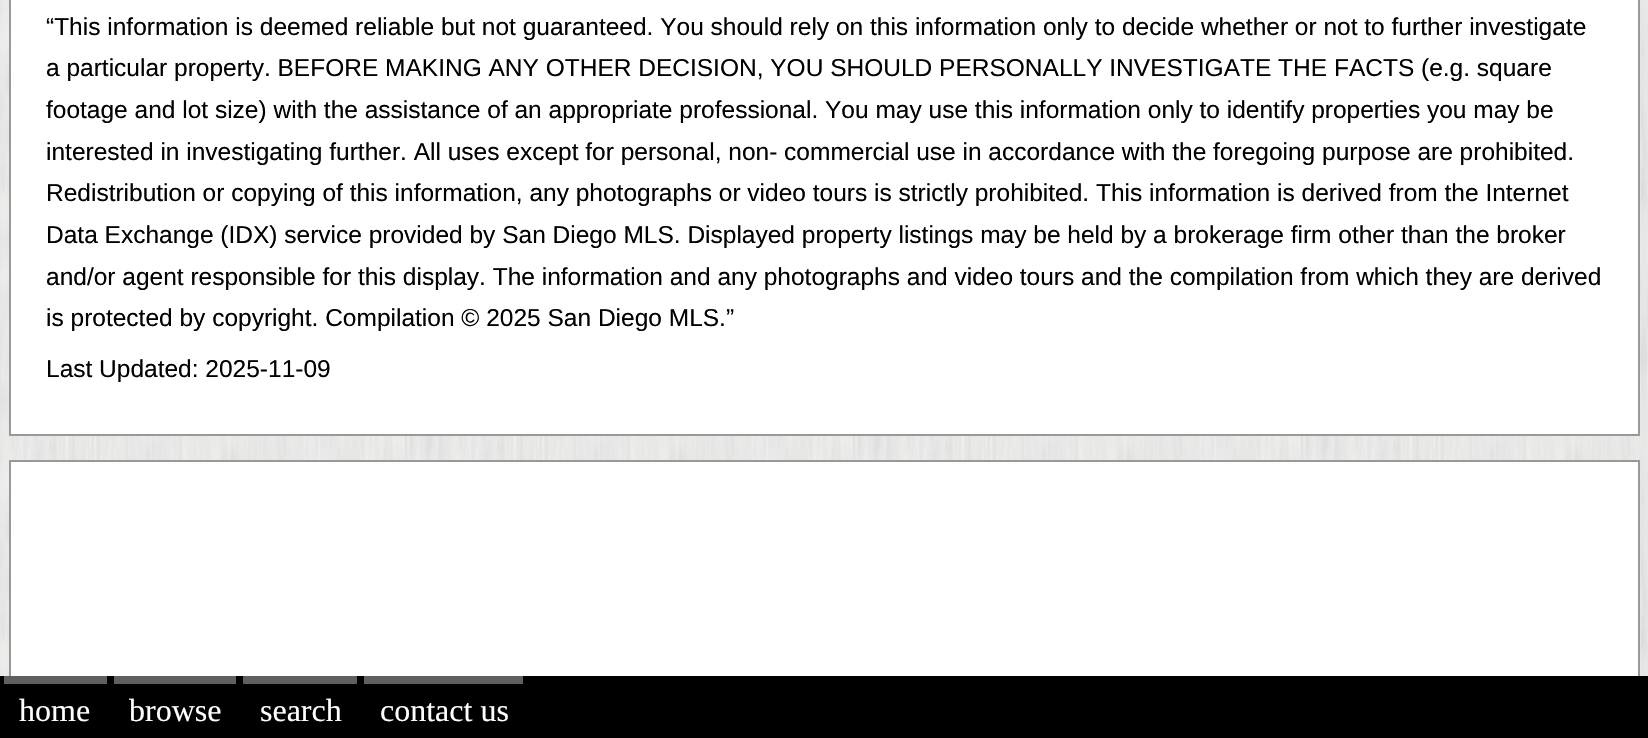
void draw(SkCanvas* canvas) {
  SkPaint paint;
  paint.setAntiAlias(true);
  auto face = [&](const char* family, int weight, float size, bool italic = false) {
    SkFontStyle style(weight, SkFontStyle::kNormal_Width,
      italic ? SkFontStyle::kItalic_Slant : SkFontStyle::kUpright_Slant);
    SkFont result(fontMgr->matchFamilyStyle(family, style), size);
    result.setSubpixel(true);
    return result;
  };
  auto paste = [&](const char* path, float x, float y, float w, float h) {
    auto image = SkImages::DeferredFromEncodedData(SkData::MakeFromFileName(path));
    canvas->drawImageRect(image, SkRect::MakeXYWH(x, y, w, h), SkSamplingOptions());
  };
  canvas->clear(0xffffffff);
  paste("img/1.png", 0, 0, 1648, 676);
  paint.setColor(0xffffffff);
  canvas->drawRect(SkRect::MakeXYWH(10, -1, 1629, 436), paint);
  paint.setStroke(true);
  paint.setStrokeWidth(2);
  paint.setColor(0xff999999);
  canvas->drawRect(SkRect::MakeXYWH(10, -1, 1629, 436), paint);
  paint.setStroke(false);
  paint.setColor(0xffffffff);
  canvas->drawRect(SkRect::MakeXYWH(11, 462, 1627, 214), paint);
  paint.setStroke(true);
  paint.setColor(0xff999999);
  canvas->drawRect(SkRect::MakeXYWH(10, 461, 1629, 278), paint);
  paint.setStroke(false);
  {
    const struct { float x, y, w, h; SkColor color; } items[] = {
      {0, 676, 1648, 62, 0xff000000},
      {4, 676, 103, 8, 0xff5f5f5f},
      {114, 676, 122, 8, 0xff5f5f5f},
      {243, 676, 114, 8, 0xff5f5f5f},
      {364, 676, 159, 8, 0xff5f5f5f},
    };
    for (auto [x, y, w, h, color] : items) {
      paint.setColor(color);
      canvas->drawRect(SkRect::MakeXYWH(x, y, w, h), paint);
    }
  }
  auto f0 = face("Liberation Sans", 400, 24.5f);
  paint.setColor(0xff000000);
  {
    const struct { const char* s; float x, y; } items[] = {
      {"“This information is deemed reliable but not guaranteed. You should rely on this information only to decide whether or not to further investigate", 46, 35},
      {"a particular property. BEFORE MAKING ANY OTHER DECISION, YOU SHOULD PERSONALLY INVESTIGATE THE FACTS (e.g. square", 46, 76},
      {"footage and lot size) with the assistance of an appropriate professional. You may use this information only to identify properties you may be", 46, 118},
      {"interested in investigating further. All uses except for personal, non- commercial use in accordance with the foregoing purpose are prohibited.", 46, 160},
      {"Redistribution or copying of this information, any photographs or video tours is strictly prohibited. This information is derived from the Internet", 46, 201},
      {"Data Exchange (IDX) service provided by San Diego MLS. Displayed property listings may be held by a brokerage firm other than the broker", 46, 243},
      {"and/or agent responsible for this display. The information and any photographs and video tours and the compilation from which they are derived", 46, 285},
      {"is protected by copyright. Compilation © 2025 San Diego MLS.”", 46, 326},
      {"Last Updated: 2025-11-09", 46, 377},
    };
    for (auto [s, x, y] : items) {
      canvas->drawString(s, x, y, f0, paint);
    }
  }
  auto f1 = face("Liberation Serif", 400, 32);
  paint.setColor(0xffffffff);
  {
    const struct { const char* s; float x, y; } items[] = {
      {"home", 19, 721},
      {"browse", 129, 721},
      {"search", 260, 721},
      {"contact us", 380, 721},
    };
    for (auto [s, x, y] : items) {
      canvas->drawString(s, x, y, f1, paint);
    }
  }
}
